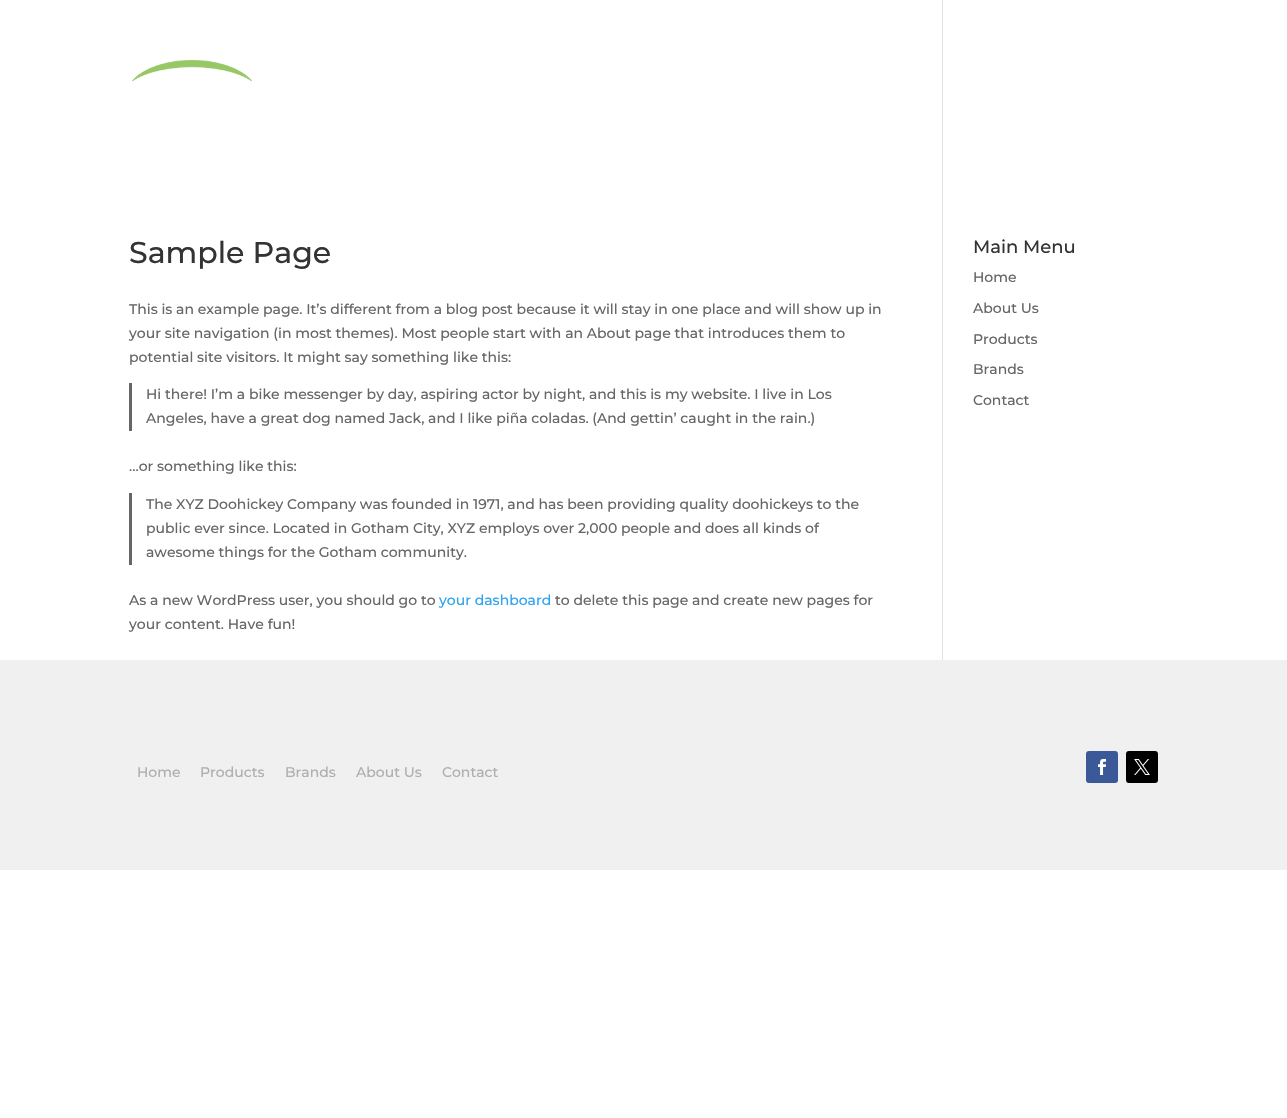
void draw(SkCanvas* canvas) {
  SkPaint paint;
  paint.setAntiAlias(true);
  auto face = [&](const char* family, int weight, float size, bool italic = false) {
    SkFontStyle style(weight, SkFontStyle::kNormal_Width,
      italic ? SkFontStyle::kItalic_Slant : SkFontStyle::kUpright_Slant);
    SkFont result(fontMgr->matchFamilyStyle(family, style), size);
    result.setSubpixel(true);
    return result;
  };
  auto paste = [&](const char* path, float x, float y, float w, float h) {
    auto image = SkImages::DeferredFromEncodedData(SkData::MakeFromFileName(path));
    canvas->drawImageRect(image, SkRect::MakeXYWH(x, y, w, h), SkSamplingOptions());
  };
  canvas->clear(0xffffffff);
  paste("img/1.png", 132, 60, 120, 22);
  {
    const struct { float x, y, w, h; SkColor color; } items[] = {
      {942, 0, 1, 660, 0xffe2e2e2},
      {129, 383, 3, 48, 0xff666666},
      {129, 493, 3, 72, 0xff666666},
      {0, 660, 1287, 210, 0xfff0f0f0},
    };
    for (auto [x, y, w, h, color] : items) {
      paint.setColor(color);
      canvas->drawRect(SkRect::MakeXYWH(x, y, w, h), paint);
    }
  }
  paint.setColor(0xff3b5998);
  canvas->drawRoundRect(SkRect::MakeXYWH(1086, 751, 32, 32), 3, 3, paint);
  paste("img/2.png", 1098, 759, 8, 16);
  paint.setColor(0xff000000);
  canvas->drawRoundRect(SkRect::MakeXYWH(1126, 751, 32, 32), 3, 3, paint);
  paste("img/3.png", 1134, 759, 16, 16);
  auto f0 = face("Montserrat", 500, 30);
  paint.setColor(0xff333333);
  canvas->drawString("Sample Page", 129, 263, f0, paint);
  auto f1 = face("Montserrat", 500, 14);
  paint.setColor(0xff666666);
  {
    const struct { const char* s; float x, y; } items[] = {
      {"This is an example page. It’s different from a blog post because it will stay in one place and will show up in", 129, 314},
      {"your site navigation (in most themes). Most people start with an About page that introduces them to", 129, 338},
      {"potential site visitors. It might say something like this:", 129, 362},
      {"Hi there! I’m a bike messenger by day, aspiring actor by night, and this is my website. I live in Los", 146, 399},
      {"Angeles, have a great dog named Jack, and I like piña coladas. (And gettin’ caught in the rain.)", 146, 423},
      {"…or something like this:", 129, 471},
      {"The XYZ Doohickey Company was founded in 1971, and has been providing quality doohickeys to the", 146, 509},
      {"public ever since. Located in Gotham City, XYZ employs over 2,000 people and does all kinds of", 146, 533},
      {"awesome things for the Gotham community.", 146, 557},
      {"As a new WordPress user, you should go to", 129, 605},
    };
    for (auto [s, x, y] : items) {
      canvas->drawString(s, x, y, f1, paint);
    }
  }
  paint.setColor(0xff2ea3f2);
  canvas->drawString("your dashboard", 439, 605, f1, paint);
  paint.setColor(0xff666666);
  canvas->drawString("to delete this page and create new pages for", 555, 605, f1, paint);
  canvas->drawString("your content. Have fun!", 129, 629, f1, paint);
  auto f2 = face("Montserrat", 500, 18);
  paint.setColor(0xff333333);
  canvas->drawString("Main Menu", 973, 253, f2, paint);
  paint.setColor(0xff666666);
  {
    const struct { const char* s; float x, y; } items[] = {
      {"Home", 973, 282},
      {"About Us", 973, 313},
      {"Products", 973, 344},
      {"Brands", 973, 374},
      {"Contact", 973, 405},
    };
    for (auto [s, x, y] : items) {
      canvas->drawString(s, x, y, f1, paint);
    }
  }
  paint.setColor(0xffafafaf);
  {
    const struct { const char* s; float x, y; } items[] = {
      {"Home", 137, 777},
      {"Products", 200, 777},
      {"Brands", 285, 777},
      {"About Us", 356, 777},
      {"Contact", 442, 777},
    };
    for (auto [s, x, y] : items) {
      canvas->drawString(s, x, y, f1, paint);
    }
  }
}
